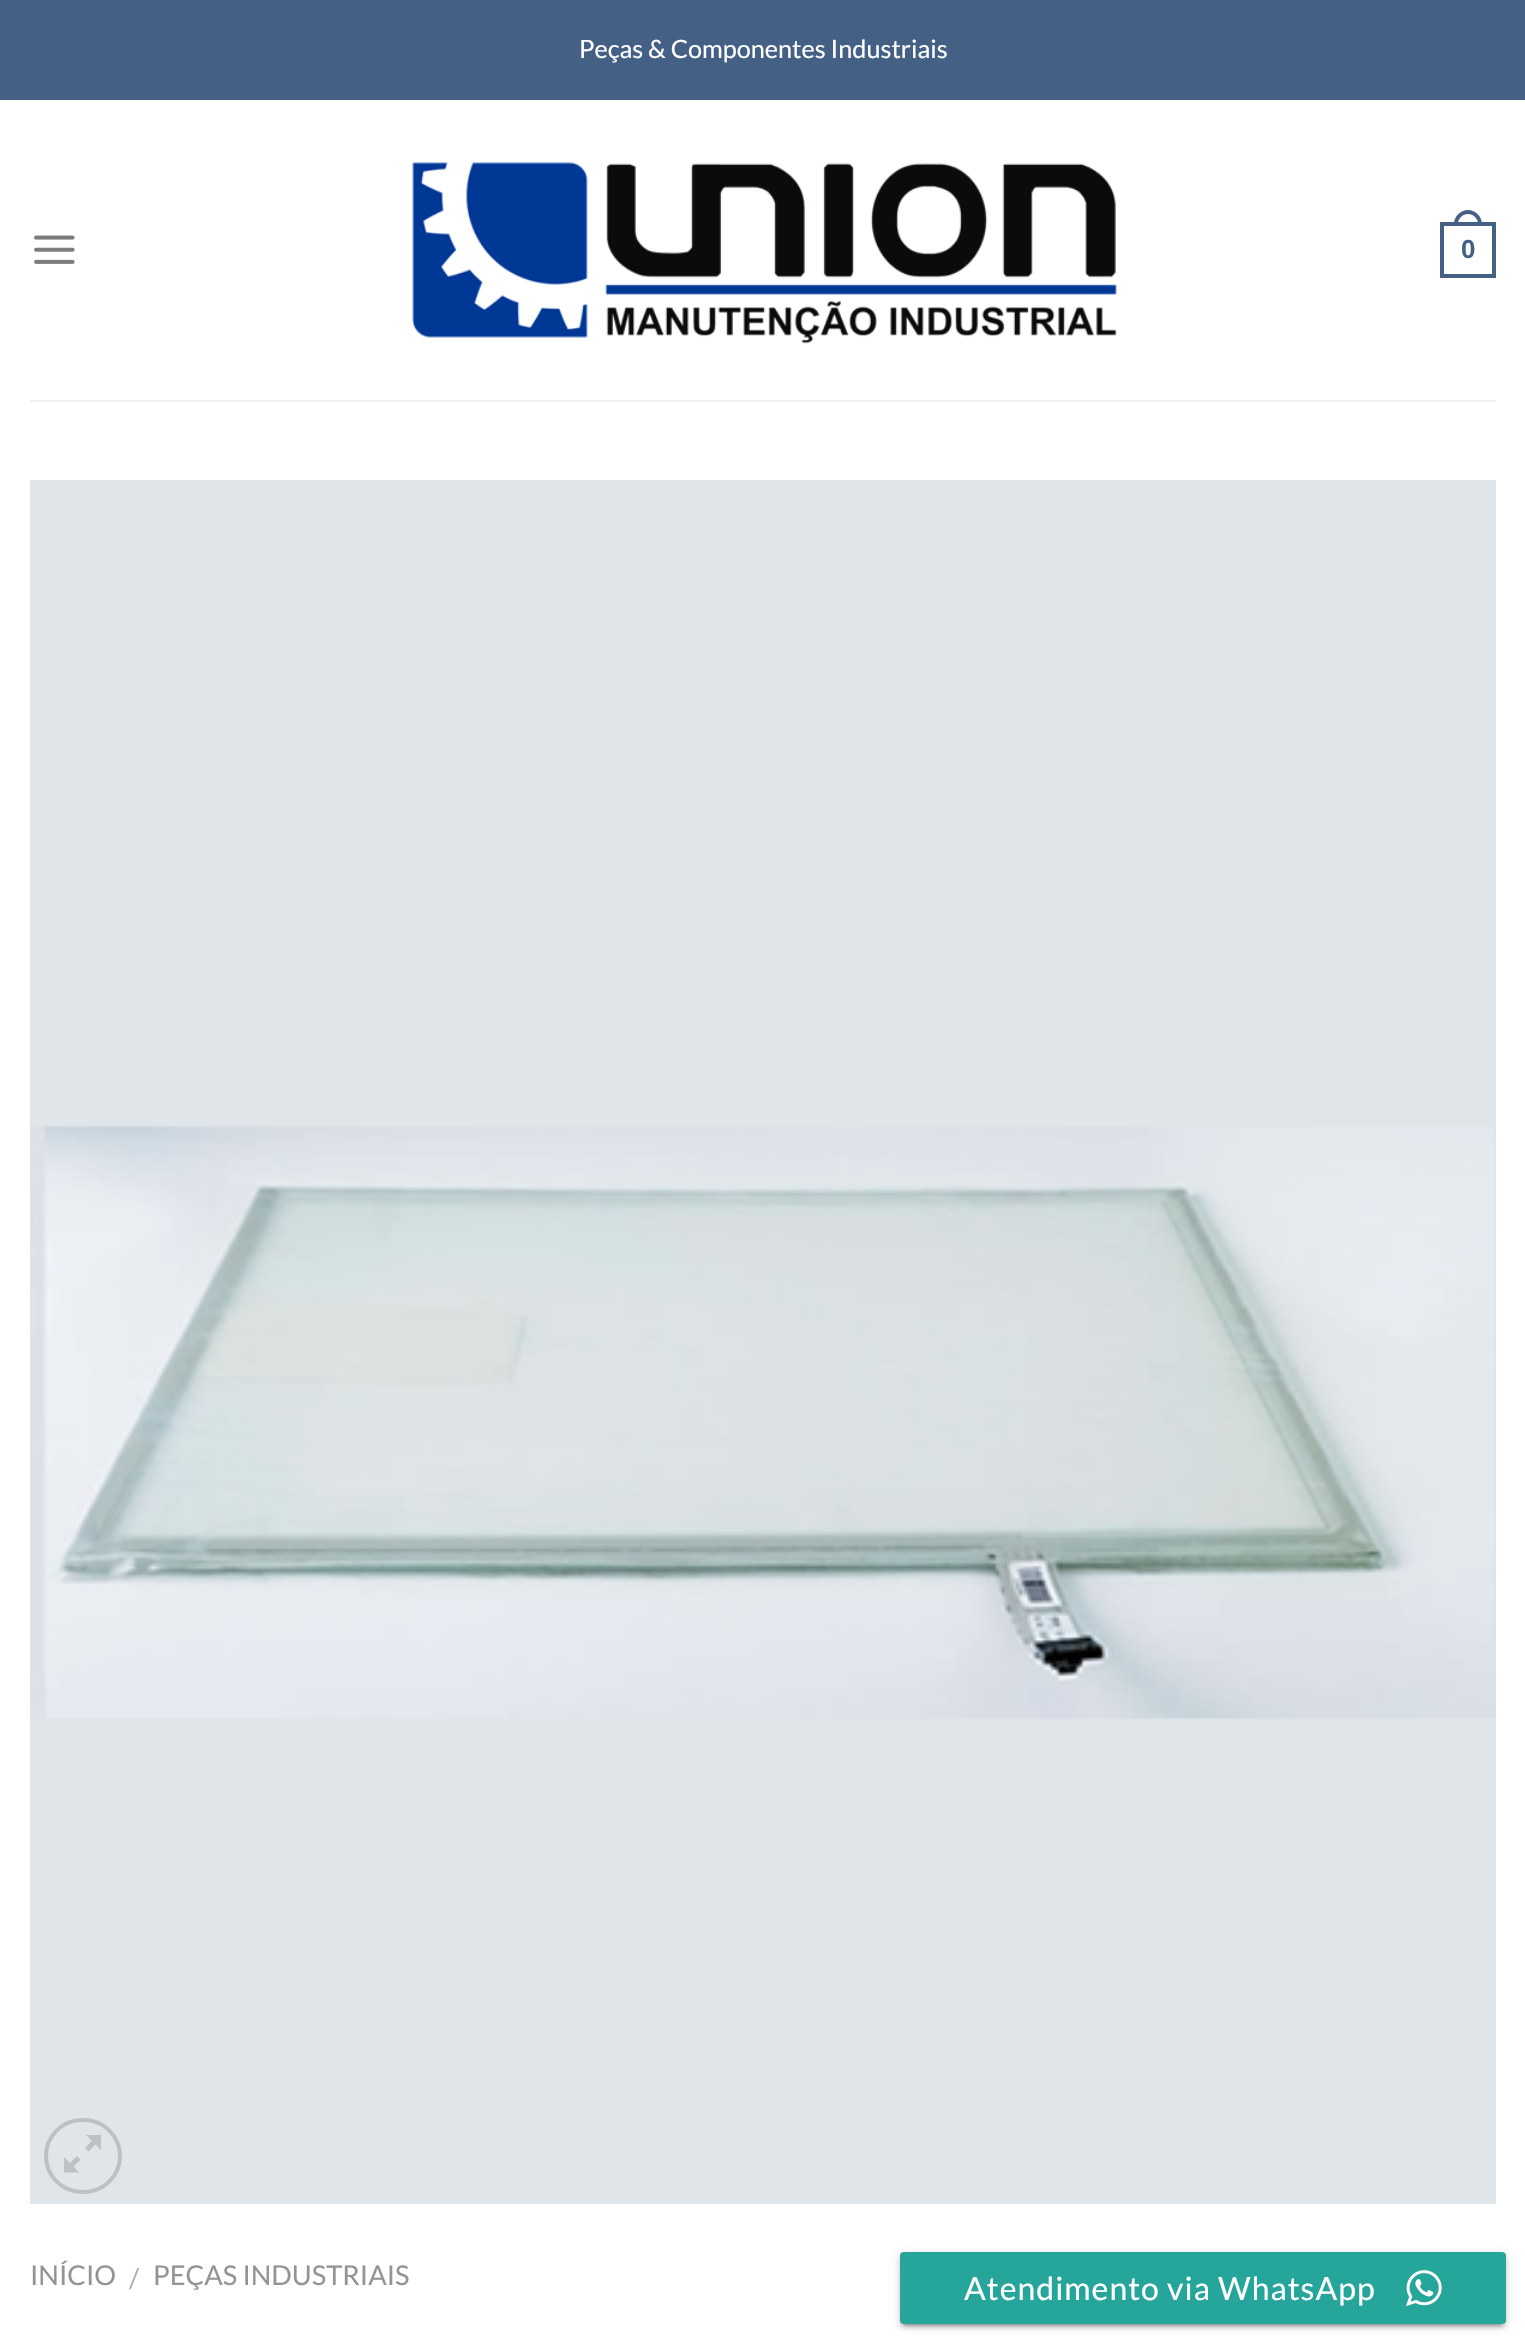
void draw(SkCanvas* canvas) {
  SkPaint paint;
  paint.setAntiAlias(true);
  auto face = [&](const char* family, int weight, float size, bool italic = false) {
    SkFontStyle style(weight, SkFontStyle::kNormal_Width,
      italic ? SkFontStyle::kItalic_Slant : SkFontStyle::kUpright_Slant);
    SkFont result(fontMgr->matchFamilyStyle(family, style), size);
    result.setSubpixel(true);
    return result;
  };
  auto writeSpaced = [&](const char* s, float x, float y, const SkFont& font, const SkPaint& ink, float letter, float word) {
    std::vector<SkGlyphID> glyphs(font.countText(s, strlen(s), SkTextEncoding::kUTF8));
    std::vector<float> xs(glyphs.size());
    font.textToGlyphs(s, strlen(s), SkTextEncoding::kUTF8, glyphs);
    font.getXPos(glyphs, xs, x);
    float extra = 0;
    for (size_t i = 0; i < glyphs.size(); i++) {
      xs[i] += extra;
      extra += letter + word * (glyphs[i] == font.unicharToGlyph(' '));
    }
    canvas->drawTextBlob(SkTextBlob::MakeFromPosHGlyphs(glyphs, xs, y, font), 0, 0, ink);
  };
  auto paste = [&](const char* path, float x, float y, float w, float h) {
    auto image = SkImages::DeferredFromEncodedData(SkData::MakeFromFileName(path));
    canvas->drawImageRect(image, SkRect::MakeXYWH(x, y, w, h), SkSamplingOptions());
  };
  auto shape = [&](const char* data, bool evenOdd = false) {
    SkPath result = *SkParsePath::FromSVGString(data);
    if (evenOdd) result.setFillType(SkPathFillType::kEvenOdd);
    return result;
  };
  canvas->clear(0xffffffff);
  paint.setColor(0xff446084);
  canvas->drawRect(SkRect::MakeXYWH(0, 0, 1525, 100), paint);
  paste("img/1.png", 34, 235, 41, 29);
  paste("img/2.png", 412, 162, 705, 182);
  paint.setStroke(true);
  paint.setStrokeWidth(4);
  canvas->drawRect(SkRect::MakeXYWH(1442, 224, 52, 52), paint);
  paint.setStroke(false);
  canvas->drawPath(shape("M1468 210C1475.5 210 1482 216.5 1482 224V226H1454V224C1454 216.5 1460.5 210 1468 210ZM1468 214C1473.5 214 1478 218.5 1478 224V226H1458V224C1458 218.5 1462.5 214 1468 214Z", true), paint);
  paint.setColor(0xfff1f1f1);
  canvas->drawRect(SkRect::MakeXYWH(30, 400, 1466, 2), paint);
  paste("img/3.png", 30, 480, 1466, 1724);
  paint.setStroke(true);
  paint.setColor(0xffc0c0c0);
  canvas->drawRoundRect(SkRect::MakeXYWH(46, 2120, 74, 72), 36, 36, paint);
  paint.setStroke(false);
  canvas->drawPath(shape("M101 2135V2150L95.5 2144.5L88.5 2151.5L85 2148L92 2141L86 2135ZM80.5 2159.5L73.5 2166.5L79 2172.5H64V2157L70 2163L77 2156Z"), paint);
  paint.setColor(0x33000000);
  paint.setMaskFilter(SkMaskFilter::MakeBlur(kNormal_SkBlurStyle, 1));
  canvas->drawRect(SkRect::MakeXYWH(904, 2262, 598, 64), paint);
  paint.setMaskFilter(nullptr);
  paint.setColor(0x1f000000);
  paint.setMaskFilter(SkMaskFilter::MakeBlur(kNormal_SkBlurStyle, 5));
  canvas->drawRoundRect(SkRect::MakeXYWH(900, 2254, 606, 72), 4, 4, paint);
  paint.setMaskFilter(nullptr);
  paint.setColor(0x24000000);
  paint.setMaskFilter(SkMaskFilter::MakeBlur(kNormal_SkBlurStyle, 2));
  canvas->drawRoundRect(SkRect::MakeXYWH(900, 2256, 606, 72), 4, 4, paint);
  paint.setMaskFilter(nullptr);
  paint.setColor(0xff26a69a);
  canvas->drawRoundRect(SkRect::MakeXYWH(900, 2252, 606, 72), 4, 4, paint);
  paste("img/4.png", 1406, 2270, 36, 36);
  auto f0 = face("Lato", 400, 25.25f);
  paint.setColor(0xffffffff);
  canvas->drawString("Peças & Componentes Industriais", 579, 58, f0, paint);
  auto f1 = face("Liberation Sans", 700, 26);
  paint.setColor(0xff446084);
  canvas->drawString("0", 1461, 258, f1, paint);
  auto f2 = face("Lato", 400, 27.25f);
  paint.setColor(0xff949494);
  canvas->drawString("INÍCIO", 30, 2285, f2, paint);
  paint.setColor(0xffb2b2b2);
  canvas->drawString("/", 129, 2288, f2, paint);
  paint.setColor(0xff949494);
  canvas->drawString("PEÇAS INDUSTRIAIS", 153, 2285, f2, paint);
  auto f3 = face("Lato", 400, 32);
  paint.setColor(0xffffffff);
  writeSpaced("Atendimento via WhatsApp", 964, 2300, f3, paint, 1, 0);
}
